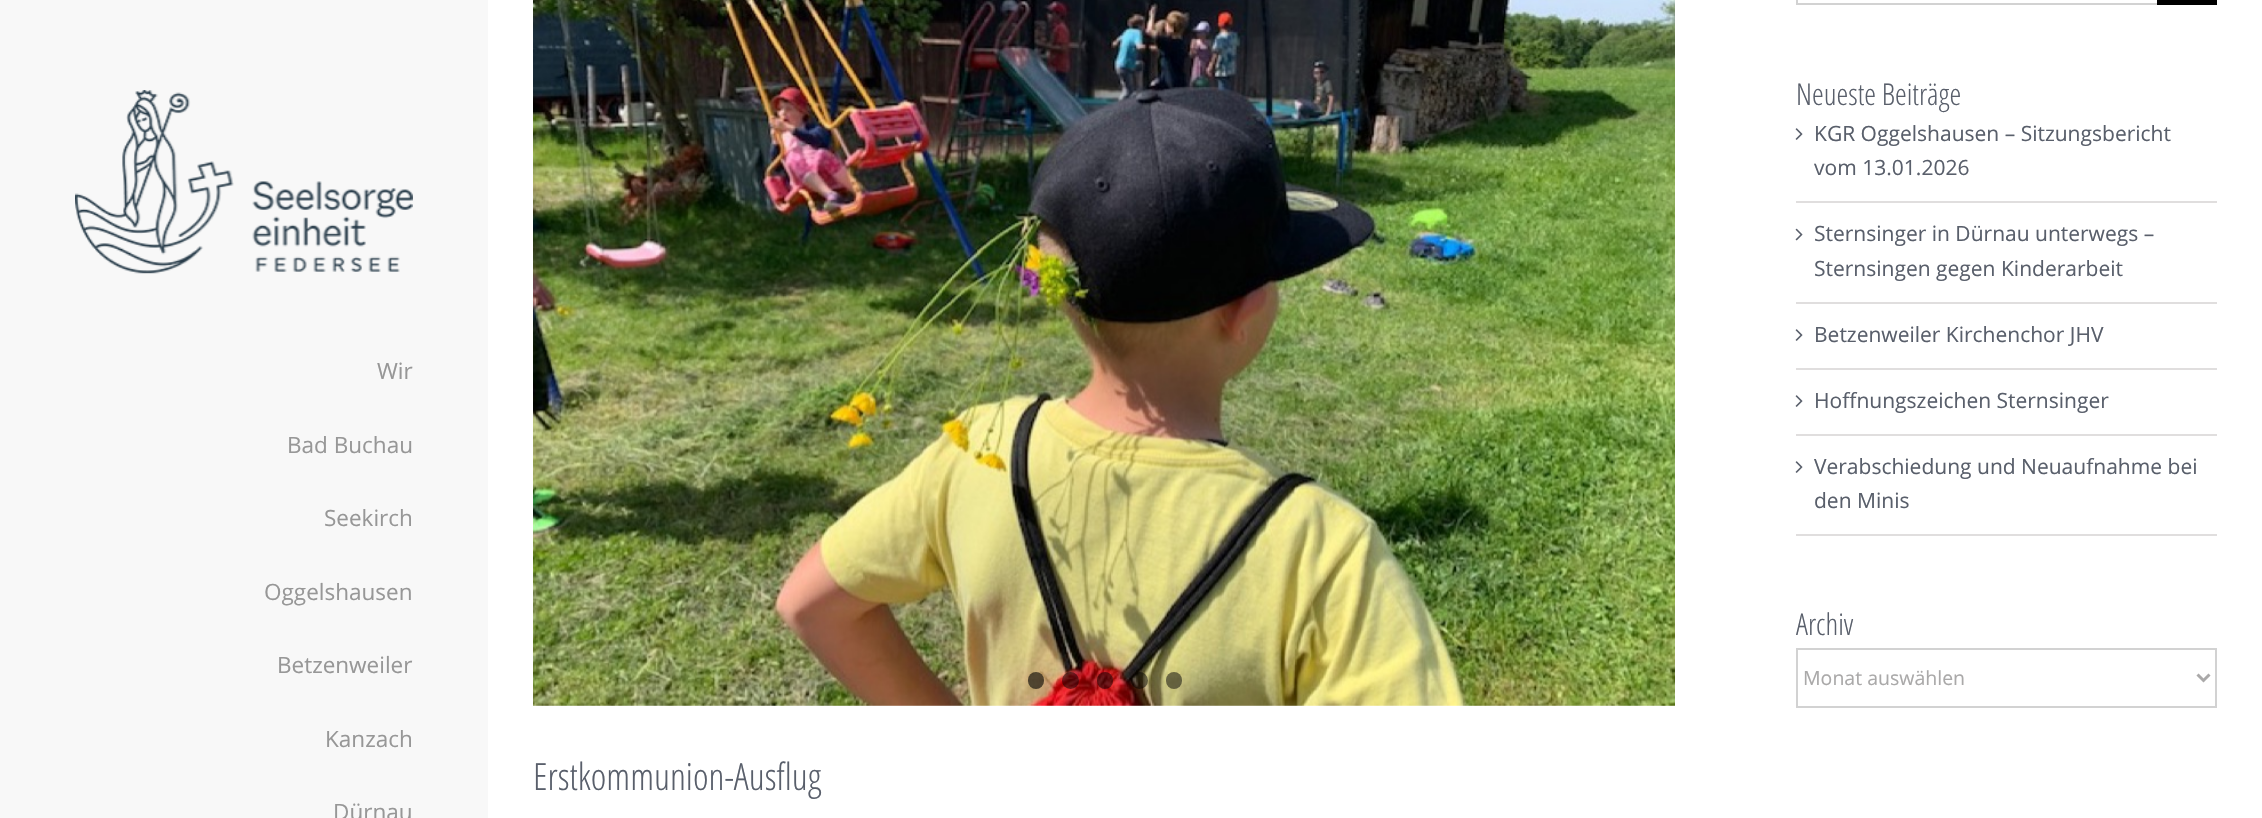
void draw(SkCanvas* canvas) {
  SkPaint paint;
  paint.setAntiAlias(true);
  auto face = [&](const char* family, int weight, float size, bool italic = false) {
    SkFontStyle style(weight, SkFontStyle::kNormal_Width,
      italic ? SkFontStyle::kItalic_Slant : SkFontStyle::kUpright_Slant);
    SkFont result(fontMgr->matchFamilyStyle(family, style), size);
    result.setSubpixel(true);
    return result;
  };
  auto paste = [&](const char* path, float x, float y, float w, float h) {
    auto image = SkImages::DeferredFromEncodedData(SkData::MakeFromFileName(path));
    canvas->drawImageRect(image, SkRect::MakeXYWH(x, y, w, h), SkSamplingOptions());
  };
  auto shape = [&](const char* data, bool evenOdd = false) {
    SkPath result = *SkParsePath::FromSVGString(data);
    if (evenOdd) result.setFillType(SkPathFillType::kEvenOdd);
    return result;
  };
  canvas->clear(0xffffffff);
  paint.setColor(0xfff8f8f8);
  canvas->drawRect(SkRect::MakeXYWH(0, 0, 488, 818), paint);
  paste("img/1.png", 75, 90, 338, 184);
  {
    const struct { float x, y, w, h; SkColor color; } items[] = {
      {1796, 3, 361, 2, 0xffd2d2d2},
      {1796, 0, 2, 5, 0xffd2d2d2},
      {2157, 0, 60, 5, 0xff000000},
      {1796, 201, 421, 2, 0xffe0dede},
    };
    for (auto [x, y, w, h, color] : items) {
      paint.setColor(color);
      canvas->drawRect(SkRect::MakeXYWH(x, y, w, h), paint);
    }
  }
  paste("img/2.png", 1795, 128, 8, 12);
  canvas->drawRect(SkRect::MakeXYWH(1796, 302, 421, 2), paint);
  paste("img/3.png", 1795, 228, 8, 13);
  canvas->drawRect(SkRect::MakeXYWH(1796, 368, 421, 2), paint);
  paste("img/2.png", 1795, 329, 8, 12);
  canvas->drawRect(SkRect::MakeXYWH(1796, 434, 421, 2), paint);
  paste("img/2.png", 1795, 395, 8, 12);
  canvas->drawRect(SkRect::MakeXYWH(1796, 534, 421, 2), paint);
  paste("img/2.png", 1795, 461, 8, 12);
  paint.setStroke(true);
  paint.setStrokeWidth(2);
  paint.setColor(0xffd2d2d2);
  canvas->drawRect(SkRect::MakeXYWH(1797, 649, 419, 58), paint);
  paint.setStrokeWidth(3);
  paint.setColor(0xffaaa9a9);
  canvas->drawPath(shape("M2197.5 674.5L2203.5 680.5L2209.5 674.5"), paint);
  paste("img/4.png", 533, 0, 1142, 706);
  paint.setStroke(false);
  paint.setColor(0x99000000);
  canvas->drawRoundRect(SkRect::MakeXYWH(1028, 672, 16, 17), 8, 8, paint);
  paint.setColor(0x80000000);
  canvas->drawCircle(1070.5f, 680.5f, 8.5f, paint);
  canvas->drawRoundRect(SkRect::MakeXYWH(1097, 672, 16, 17), 8, 8, paint);
  canvas->drawCircle(1139.5f, 680.5f, 8.5f, paint);
  canvas->drawRoundRect(SkRect::MakeXYWH(1166, 672, 16, 17), 8, 8, paint);
  auto f0 = face("Open Sans", 400, 22.5f);
  paint.setColor(0xff979797);
  {
    const struct { const char* s; float x, y; } items[] = {
      {"Wir", 377, 379},
      {"Bad Buchau", 287, 453},
      {"Seekirch", 324, 526},
      {"Oggelshausen", 264, 600},
      {"Betzenweiler", 277, 673},
      {"Kanzach", 325, 747},
      {"Dürnau", 333, 820},
    };
    for (auto [s, x, y] : items) {
      canvas->drawString(s, x, y, f0, paint);
    }
  }
  auto f1 = face("Open Sans Condensed", 300, 30);
  paint.setColor(0xff595f6b);
  canvas->drawString("Neueste Beiträge", 1796, 105, f1, paint);
  auto f2 = face("Open Sans", 400, 21);
  {
    const struct { const char* s; float x, y; } items[] = {
      {"KGR Oggelshausen – Sitzungsbericht", 1814, 141},
      {"vom 13.01.2026", 1814, 175},
      {"Sternsinger in Dürnau unterwegs –", 1814, 241},
      {"Sternsingen gegen Kinderarbeit", 1814, 276},
      {"Betzenweiler Kirchenchor JHV", 1814, 342},
      {"Hoffnungszeichen Sternsinger", 1814, 408},
      {"Verabschiedung und Neuaufnahme bei", 1814, 474},
      {"den Minis", 1814, 508},
    };
    for (auto [s, x, y] : items) {
      canvas->drawString(s, x, y, f2, paint);
    }
  }
  canvas->drawString("Archiv", 1796, 635, f1, paint);
  auto f3 = face("Open Sans", 400, 19.5f);
  paint.setColor(0xffaaa9a9);
  canvas->drawString("Monat auswählen", 1803, 685, f3, paint);
  auto f4 = face("Open Sans Condensed", 300, 37.5f);
  paint.setColor(0xff595f6b);
  canvas->drawString("Erstkommunion-Ausflug", 533, 790, f4, paint);
}
